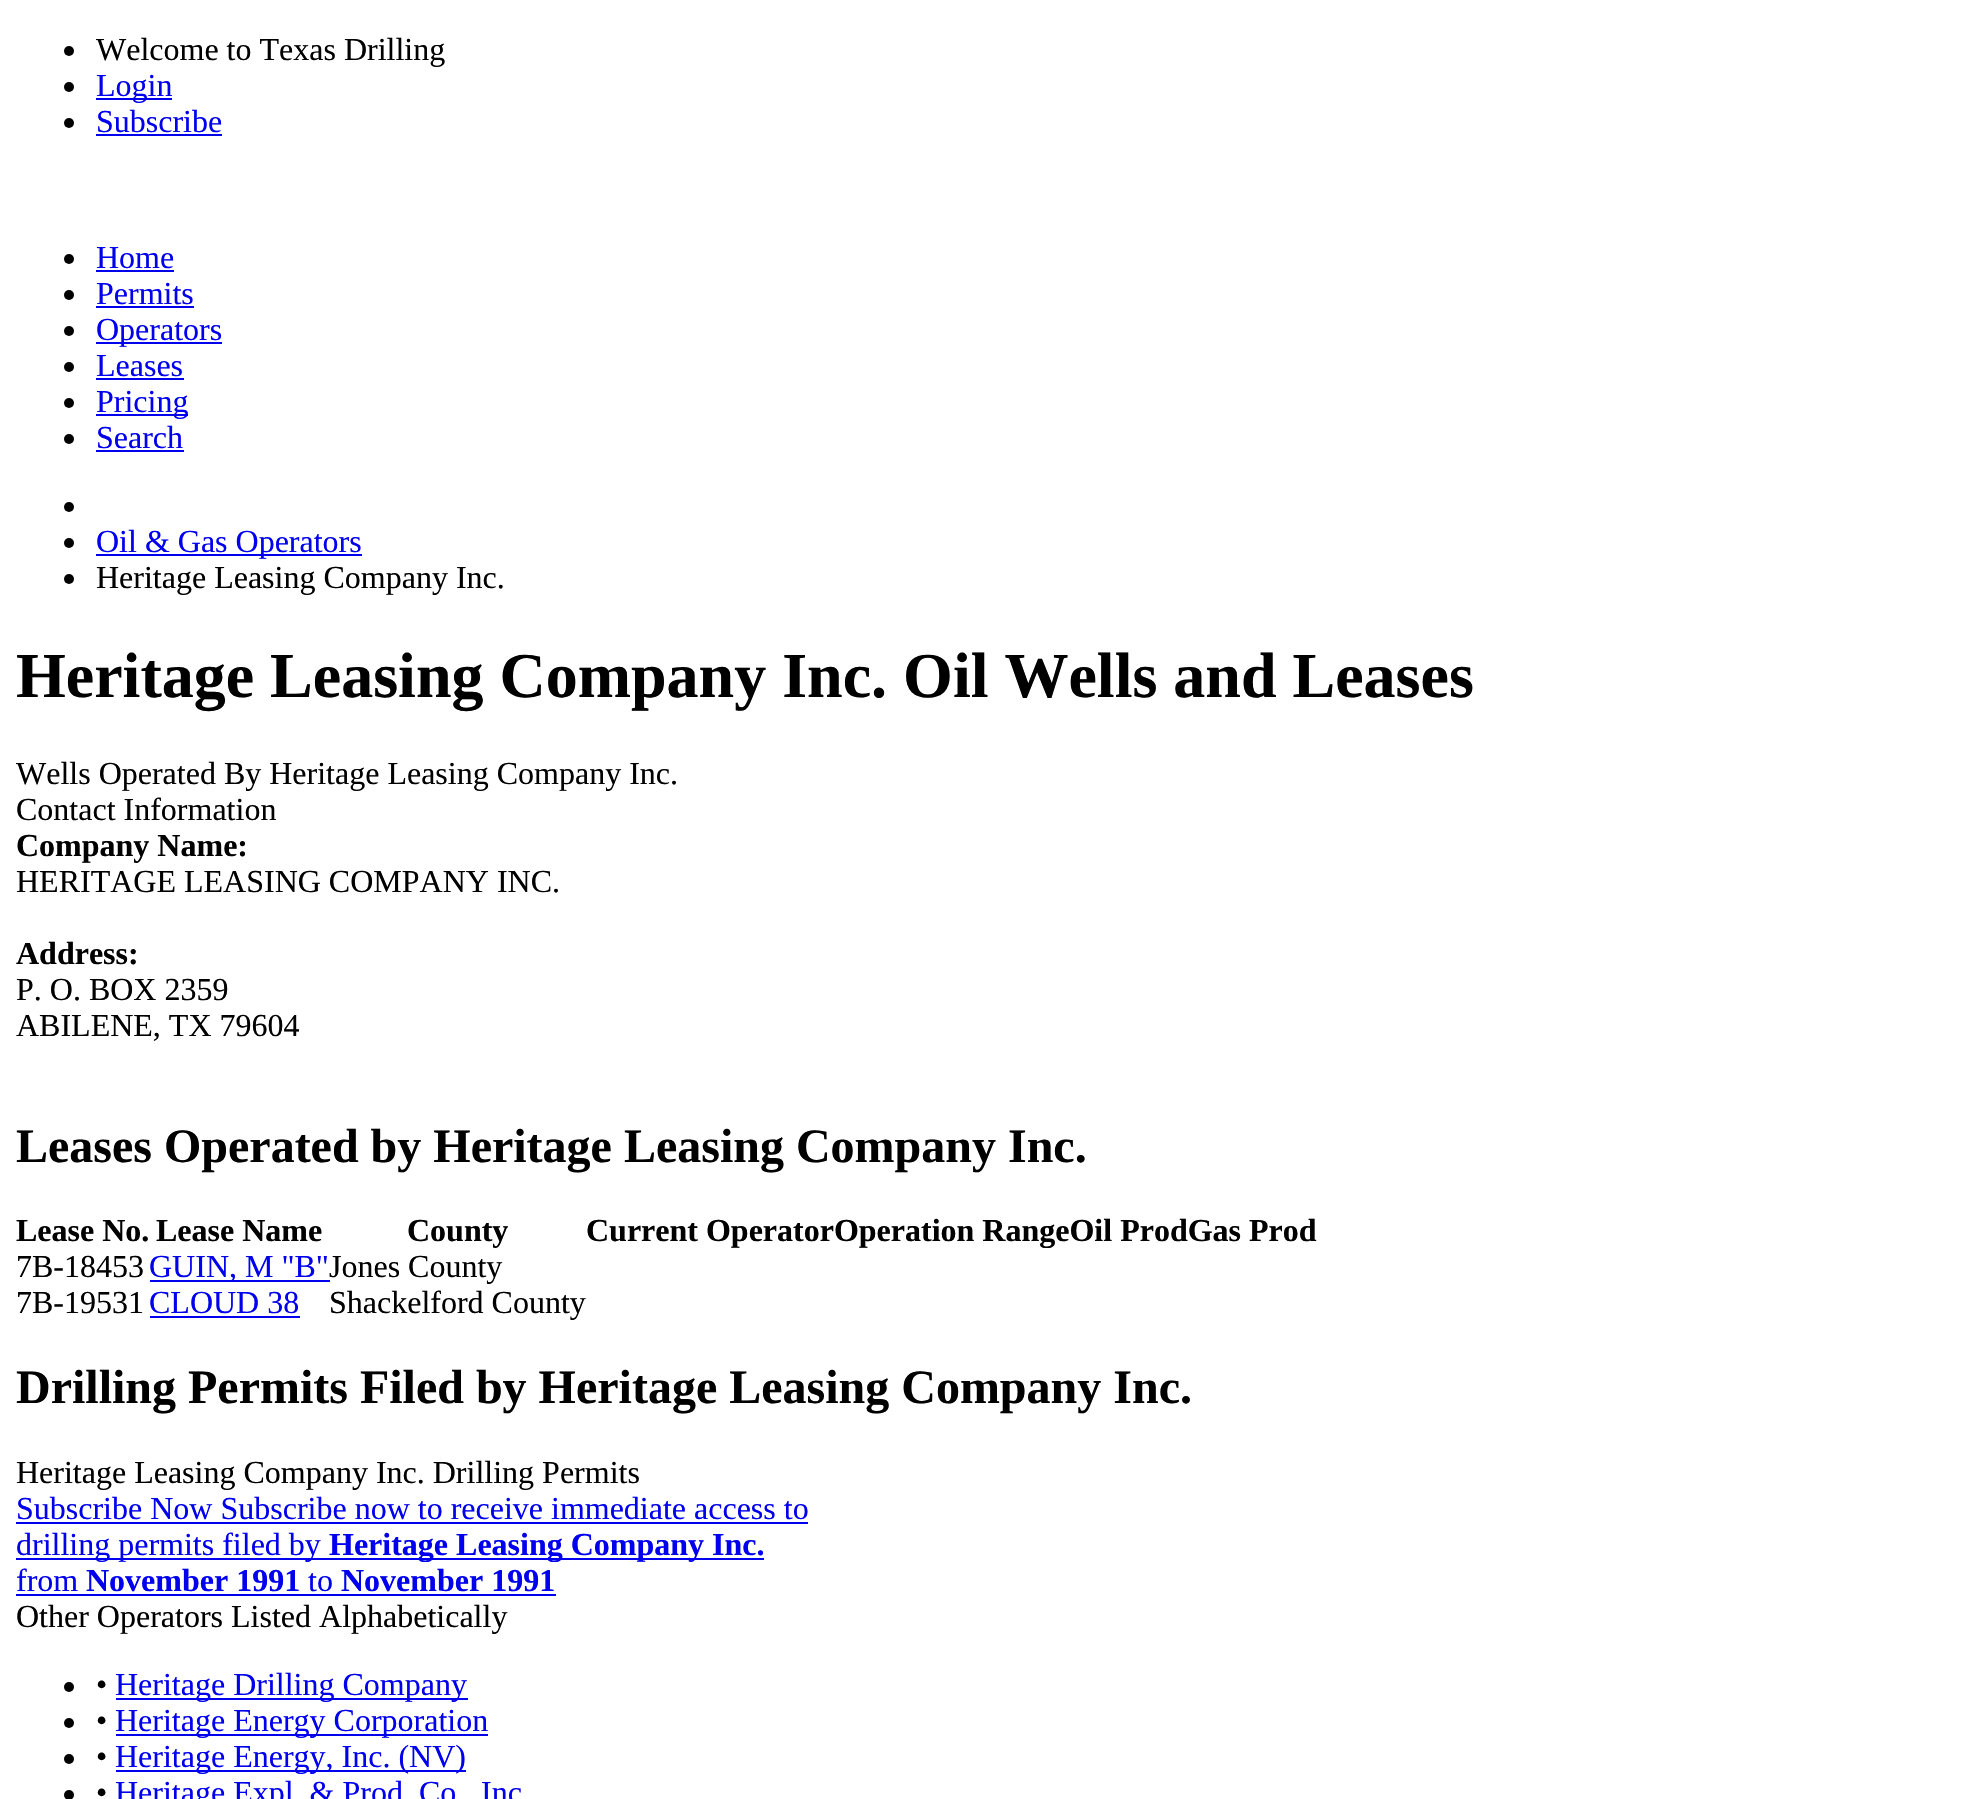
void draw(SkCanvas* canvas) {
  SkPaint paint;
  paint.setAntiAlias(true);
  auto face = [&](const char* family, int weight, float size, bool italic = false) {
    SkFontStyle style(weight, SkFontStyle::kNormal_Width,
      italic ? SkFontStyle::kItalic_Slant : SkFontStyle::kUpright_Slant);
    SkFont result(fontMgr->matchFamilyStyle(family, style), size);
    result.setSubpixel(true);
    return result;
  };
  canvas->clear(0xffffffff);
  paint.setColor(0xff000000);
  canvas->drawCircle(69, 51, 5, paint);
  canvas->drawCircle(69, 87, 5, paint);
  paint.setColor(0xff0000ee);
  canvas->drawRect(SkRect::MakeXYWH(96, 98, 76, 2), paint);
  paint.setColor(0xff000000);
  canvas->drawCircle(69, 123, 5, paint);
  paint.setColor(0xff0000ee);
  canvas->drawRect(SkRect::MakeXYWH(96, 134, 126, 2), paint);
  paint.setColor(0xff000000);
  canvas->drawCircle(69, 259, 5, paint);
  paint.setColor(0xff0000ee);
  canvas->drawRect(SkRect::MakeXYWH(96, 270, 78, 2), paint);
  paint.setColor(0xff000000);
  canvas->drawCircle(69, 295, 5, paint);
  paint.setColor(0xff0000ee);
  canvas->drawRect(SkRect::MakeXYWH(96, 306, 98, 2), paint);
  paint.setColor(0xff000000);
  canvas->drawCircle(69, 331, 5, paint);
  paint.setColor(0xff0000ee);
  canvas->drawRect(SkRect::MakeXYWH(96, 342, 126, 2), paint);
  paint.setColor(0xff000000);
  canvas->drawCircle(69, 367, 5, paint);
  paint.setColor(0xff0000ee);
  canvas->drawRect(SkRect::MakeXYWH(96, 378, 88, 2), paint);
  paint.setColor(0xff000000);
  canvas->drawCircle(69, 403, 5, paint);
  paint.setColor(0xff0000ee);
  canvas->drawRect(SkRect::MakeXYWH(96, 414, 92, 2), paint);
  paint.setColor(0xff000000);
  canvas->drawCircle(69, 439, 5, paint);
  paint.setColor(0xff0000ee);
  canvas->drawRect(SkRect::MakeXYWH(96, 450, 88, 2), paint);
  paint.setColor(0xff000000);
  canvas->drawCircle(69, 507, 5, paint);
  canvas->drawCircle(69, 543, 5, paint);
  paint.setColor(0xff0000ee);
  canvas->drawRect(SkRect::MakeXYWH(96, 554, 266, 2), paint);
  paint.setColor(0xff000000);
  canvas->drawCircle(69, 579, 5, paint);
  {
    const struct { float x, y, w, h; SkColor color; } items[] = {
      {150, 1280, 180, 2, 0xff0000ee},
      {150, 1316, 150, 2, 0xff0000ee},
      {16, 1522, 792, 2, 0xff0000ee},
      {16, 1558, 748, 2, 0xff0000ee},
      {16, 1594, 540, 2, 0xff0000ee},
    };
    for (auto [x, y, w, h, color] : items) {
      paint.setColor(color);
      canvas->drawRect(SkRect::MakeXYWH(x, y, w, h), paint);
    }
  }
  paint.setColor(0xff000000);
  canvas->drawCircle(69, 1687, 5, paint);
  paint.setColor(0xff0000ee);
  canvas->drawRect(SkRect::MakeXYWH(116, 1698, 352, 2), paint);
  paint.setColor(0xff000000);
  canvas->drawCircle(69, 1723, 5, paint);
  paint.setColor(0xff0000ee);
  canvas->drawRect(SkRect::MakeXYWH(116, 1734, 372, 2), paint);
  paint.setColor(0xff000000);
  canvas->drawCircle(69, 1759, 5, paint);
  paint.setColor(0xff0000ee);
  canvas->drawRect(SkRect::MakeXYWH(116, 1770, 350, 2), paint);
  paint.setColor(0xff000000);
  canvas->drawCircle(69, 1795, 5, paint);
  auto f0 = face("Liberation Serif", 400, 32);
  canvas->drawString("Welcome to Texas Drilling", 96, 60, f0, paint);
  paint.setColor(0xff0000ee);
  {
    const struct { const char* s; float x, y; } items[] = {
      {"Login", 96, 96},
      {"Subscribe", 96, 132},
      {"Home", 96, 268},
      {"Permits", 96, 304},
      {"Operators", 96, 340},
      {"Leases", 96, 376},
      {"Pricing", 96, 412},
      {"Search", 96, 448},
      {"Oil & Gas Operators", 96, 552},
    };
    for (auto [s, x, y] : items) {
      canvas->drawString(s, x, y, f0, paint);
    }
  }
  paint.setColor(0xff000000);
  canvas->drawString("Heritage Leasing Company Inc.", 96, 588, f0, paint);
  auto f1 = face("Liberation Serif", 700, 64);
  canvas->drawString("Heritage Leasing Company Inc. Oil Wells and Leases", 16, 697, f1, paint);
  canvas->drawString("Wells Operated By Heritage Leasing Company Inc.", 16, 784, f0, paint);
  canvas->drawString("Contact Information", 16, 820, f0, paint);
  auto f2 = face("Liberation Serif", 700, 32);
  canvas->drawString("Company Name:", 16, 856, f2, paint);
  canvas->drawString("HERITAGE LEASING COMPANY INC.", 16, 892, f0, paint);
  canvas->drawString("Address:", 16, 964, f2, paint);
  canvas->drawString("P. O. BOX 2359", 16, 1000, f0, paint);
  canvas->drawString("ABILENE, TX 79604", 16, 1036, f0, paint);
  auto f3 = face("Liberation Serif", 700, 48);
  canvas->drawString("Leases Operated by Heritage Leasing Company Inc.", 16, 1162, f3, paint);
  {
    const struct { const char* s; float x, y; } items[] = {
      {"Lease No.", 16, 1241},
      {"Lease Name", 156, 1241},
      {"County", 407, 1241},
      {"Current OperatorOperation RangeOil ProdGas Prod", 586, 1241},
    };
    for (auto [s, x, y] : items) {
      canvas->drawString(s, x, y, f2, paint);
    }
  }
  canvas->drawString("7B-18453", 16, 1277, f0, paint);
  paint.setColor(0xff0000ee);
  canvas->drawString("GUIN, M \"B\"", 149, 1277, f0, paint);
  paint.setColor(0xff000000);
  canvas->drawString("Jones County", 329, 1277, f0, paint);
  canvas->drawString("7B-19531", 16, 1313, f0, paint);
  paint.setColor(0xff0000ee);
  canvas->drawString("CLOUD 38", 149, 1313, f0, paint);
  paint.setColor(0xff000000);
  canvas->drawString("Shackelford County", 329, 1313, f0, paint);
  canvas->drawString("Drilling Permits Filed by Heritage Leasing Company Inc.", 16, 1403, f3, paint);
  canvas->drawString("Heritage Leasing Company Inc. Drilling Permits", 16, 1483, f0, paint);
  paint.setColor(0xff0000ee);
  canvas->drawString("Subscribe Now Subscribe now to receive immediate access to", 16, 1519, f0, paint);
  canvas->drawString("drilling permits filed by", 16, 1555, f0, paint);
  canvas->drawString("Heritage Leasing Company Inc.", 329, 1555, f2, paint);
  canvas->drawString("from", 16, 1591, f0, paint);
  canvas->drawString("November 1991", 86, 1591, f2, paint);
  canvas->drawString("to", 308, 1591, f0, paint);
  canvas->drawString("November 1991", 341, 1591, f2, paint);
  paint.setColor(0xff000000);
  canvas->drawString("Other Operators Listed Alphabetically", 16, 1627, f0, paint);
  canvas->drawString("•", 96, 1695, f0, paint);
  paint.setColor(0xff0000ee);
  canvas->drawString("Heritage Drilling Company", 115, 1695, f0, paint);
  paint.setColor(0xff000000);
  canvas->drawString("•", 96, 1731, f0, paint);
  paint.setColor(0xff0000ee);
  canvas->drawString("Heritage Energy Corporation", 115, 1731, f0, paint);
  paint.setColor(0xff000000);
  canvas->drawString("•", 96, 1767, f0, paint);
  paint.setColor(0xff0000ee);
  canvas->drawString("Heritage Energy, Inc. (NV)", 115, 1767, f0, paint);
  paint.setColor(0xff000000);
  canvas->drawString("•", 96, 1803, f0, paint);
  paint.setColor(0xff0000ee);
  canvas->drawString("Heritage Expl. & Prod. Co", 115, 1803, f0, paint);
  canvas->drawString("Inc", 481, 1803, f0, paint);
}
